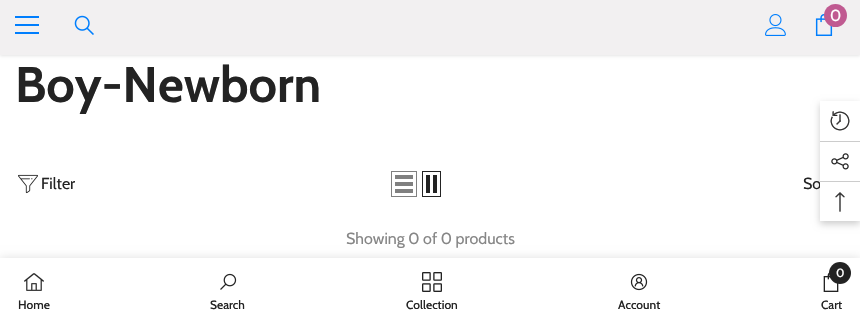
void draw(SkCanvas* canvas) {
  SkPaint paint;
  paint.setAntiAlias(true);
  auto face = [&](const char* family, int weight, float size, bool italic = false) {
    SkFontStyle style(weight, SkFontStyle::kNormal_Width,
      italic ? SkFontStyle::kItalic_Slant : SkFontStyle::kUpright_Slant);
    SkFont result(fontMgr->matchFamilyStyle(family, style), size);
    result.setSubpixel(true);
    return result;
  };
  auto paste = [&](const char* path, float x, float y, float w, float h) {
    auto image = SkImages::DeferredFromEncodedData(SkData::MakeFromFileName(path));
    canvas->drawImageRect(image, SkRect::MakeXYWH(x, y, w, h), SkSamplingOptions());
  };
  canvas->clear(0xffffffff);
  paint.setColor(0x1a000000);
  paint.setMaskFilter(SkMaskFilter::MakeBlur(kNormal_SkBlurStyle, 1.5f));
  canvas->drawRect(SkRect::MakeXYWH(0, 1, 860, 55), paint);
  paint.setMaskFilter(nullptr);
  {
    const struct { float x, y, w, h; SkColor color; } items[] = {
      {0, 0, 860, 55, 0xfff2f0f1},
      {15, 24, 24, 2, 0xff007efd},
      {15, 16, 24, 2, 0xff007efd},
      {15, 32, 24, 2, 0xff007efd},
    };
    for (auto [x, y, w, h, color] : items) {
      paint.setColor(color);
      canvas->drawRect(SkRect::MakeXYWH(x, y, w, h), paint);
    }
  }
  paste("img/1.png", 74, 15, 20, 20);
  paste("img/2.png", 765, 14, 21, 22);
  paste("img/3.png", 815, 14, 18, 22);
  paint.setColor(0xffc05a91);
  canvas->drawCircle(835.5f, 15.5f, 11.5f, paint);
  paste("img/4.png", 18, 174, 20, 20);
  paint.setStroke(true);
  paint.setStrokeWidth(1);
  paint.setColor(0xff808080);
  canvas->drawRect(SkRect::MakeXYWH(391.5f, 171.5f, 25, 25), paint);
  paint.setStroke(false);
  {
    const struct { float x, y, w, h; SkColor color; } items[] = {
      {395, 189, 18, 4, 0xff808080},
      {395, 182, 18, 4, 0xff808080},
      {395, 175, 18, 4, 0xff808080},
    };
    for (auto [x, y, w, h, color] : items) {
      paint.setColor(color);
      canvas->drawRect(SkRect::MakeXYWH(x, y, w, h), paint);
    }
  }
  paint.setStroke(true);
  paint.setColor(0xff232323);
  canvas->drawRect(SkRect::MakeXYWH(422.5f, 171.5f, 18, 25), paint);
  paint.setStroke(false);
  canvas->drawRect(SkRect::MakeXYWH(433, 175, 4, 18), paint);
  canvas->drawRect(SkRect::MakeXYWH(426, 175, 4, 18), paint);
  paint.setColor(0x1f000000);
  paint.setMaskFilter(SkMaskFilter::MakeBlur(kNormal_SkBlurStyle, 4.5f));
  canvas->drawRect(SkRect::MakeXYWH(0, 258, 860, 64), paint);
  paint.setMaskFilter(nullptr);
  paint.setColor(0xffffffff);
  canvas->drawRect(SkRect::MakeXYWH(0, 258, 860, 64), paint);
  paste("img/5.png", 24, 273, 20, 18);
  paste("img/6.png", 220, 273, 17, 17);
  paste("img/7.png", 422, 272, 20, 20);
  paste("img/8.png", 630, 273, 18, 18);
  paste("img/9.png", 823, 272, 16, 20);
  paint.setColor(0xff232323);
  canvas->drawCircle(840, 273, 11, paint);
  paint.setColor(0x33000000);
  paint.setMaskFilter(SkMaskFilter::MakeBlur(kNormal_SkBlurStyle, 3.5f));
  canvas->drawRect(SkRect::MakeXYWH(820, 104, 40, 120), paint);
  paint.setMaskFilter(nullptr);
  auto f0 = face("Cabin", 400, 16);
  paint.setColor(0xffffffff);
  canvas->drawString("0", 830, 21, f0, paint);
  auto f1 = face("Cabin", 700, 50);
  paint.setColor(0xff232323);
  canvas->drawString("Boy-Newborn", 15, 102, f1, paint);
  canvas->drawString("Filter", 41, 189, f0, paint);
  canvas->drawString("So", 803, 189, f0, paint);
  paint.setColor(0xff868686);
  canvas->drawString("Showing 0 of 0 products", 346, 244, f0, paint);
  auto f2 = face("Cabin", 500, 12);
  paint.setColor(0xff232323);
  {
    const struct { const char* s; float x, y; } items[] = {
      {"Home", 18, 309},
      {"Search", 210, 309},
      {"Collection", 406, 309},
      {"Account", 618, 309},
    };
    for (auto [s, x, y] : items) {
      canvas->drawString(s, x, y, f2, paint);
    }
  }
  paint.setColor(0xffffffff);
  canvas->drawString("0", 836, 277, f2, paint);
  paint.setColor(0xff232323);
  canvas->drawString("Cart", 821, 309, f2, paint);
  paint.setColor(0xffffffff);
  canvas->drawRect(SkRect::MakeXYWH(820, 101, 40, 120), paint);
  paste("img/10.png", 830, 111, 20, 20);
  paint.setColor(0xffcccccc);
  canvas->drawRect(SkRect::MakeXYWH(820, 141, 40, 1), paint);
  paste("img/11.png", 831, 153, 18, 17);
  canvas->drawRect(SkRect::MakeXYWH(820, 181, 40, 1), paint);
  paste("img/12.png", 835, 192, 10, 20);
}
